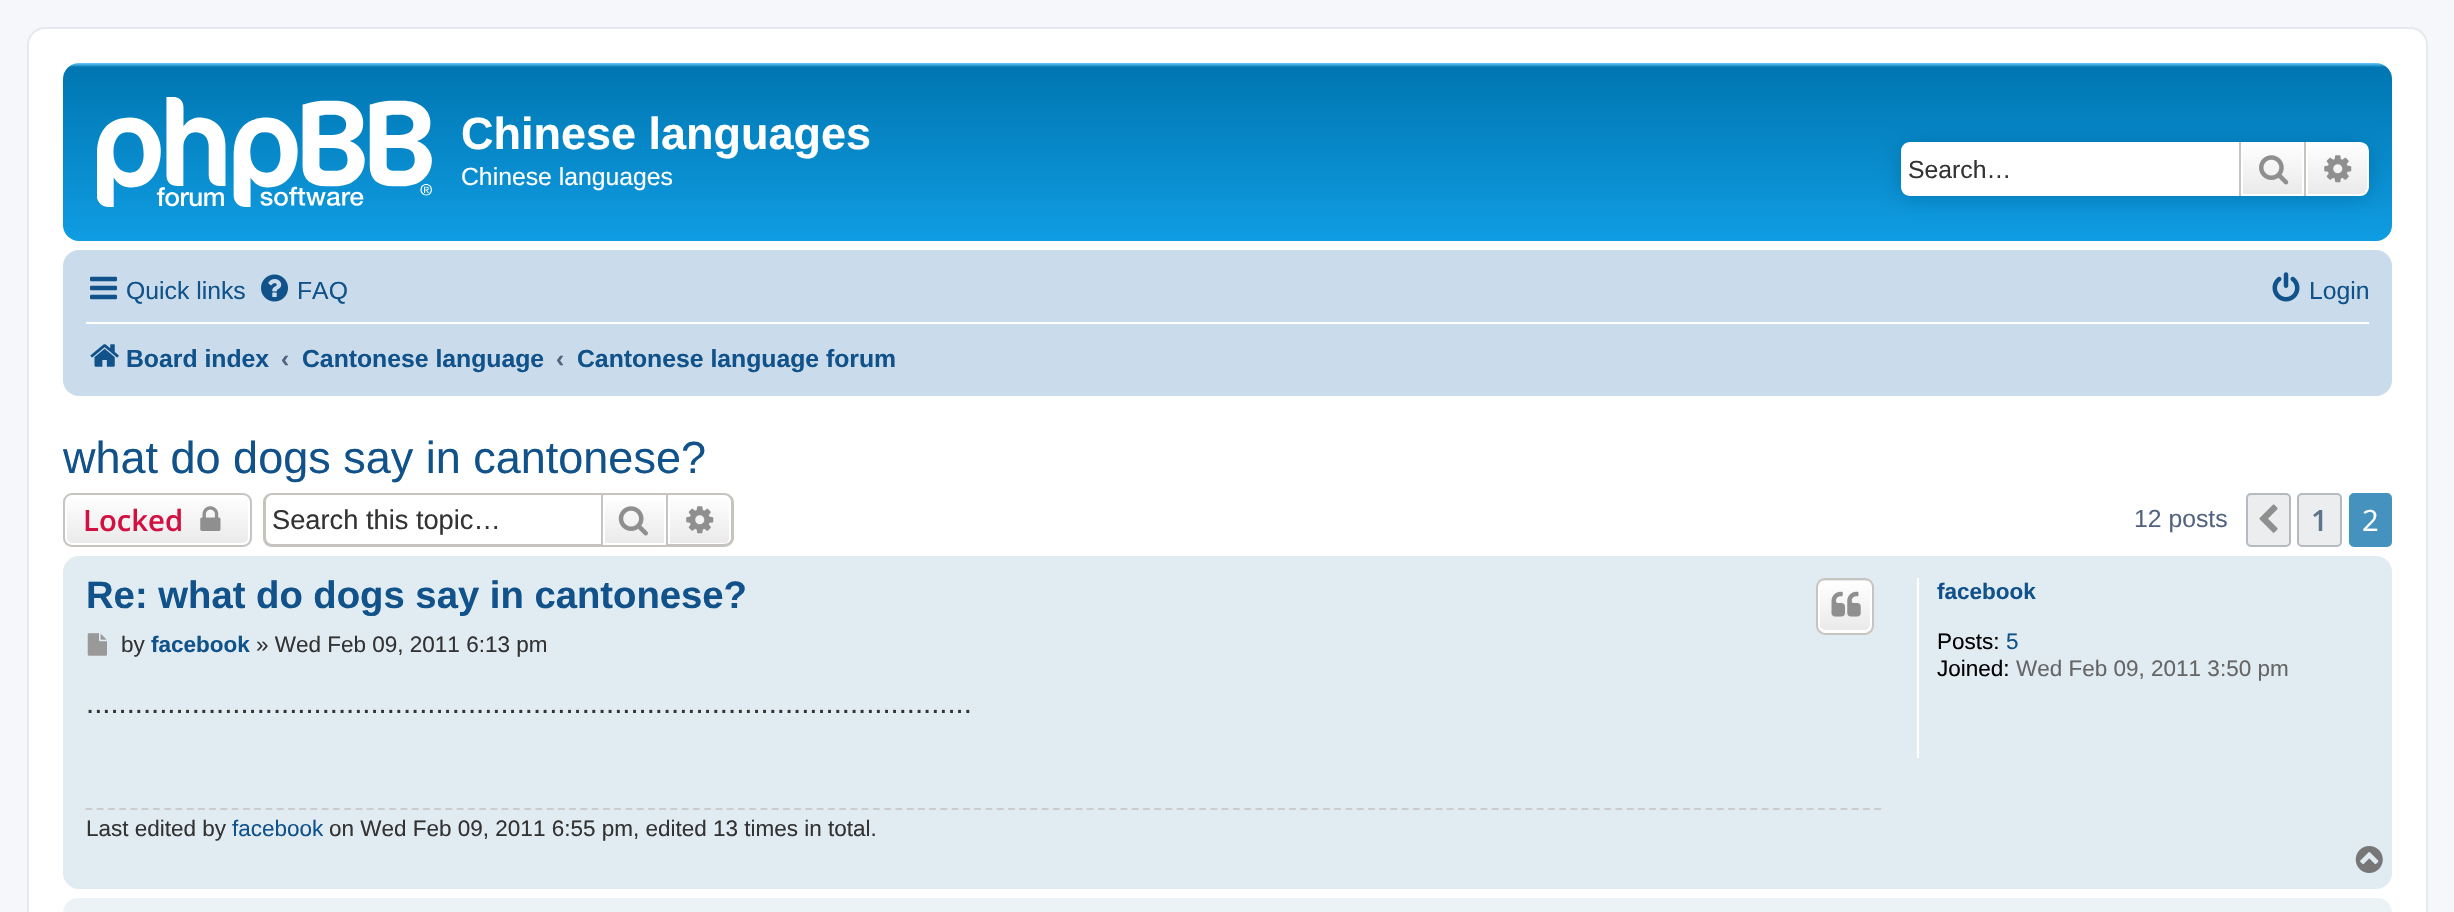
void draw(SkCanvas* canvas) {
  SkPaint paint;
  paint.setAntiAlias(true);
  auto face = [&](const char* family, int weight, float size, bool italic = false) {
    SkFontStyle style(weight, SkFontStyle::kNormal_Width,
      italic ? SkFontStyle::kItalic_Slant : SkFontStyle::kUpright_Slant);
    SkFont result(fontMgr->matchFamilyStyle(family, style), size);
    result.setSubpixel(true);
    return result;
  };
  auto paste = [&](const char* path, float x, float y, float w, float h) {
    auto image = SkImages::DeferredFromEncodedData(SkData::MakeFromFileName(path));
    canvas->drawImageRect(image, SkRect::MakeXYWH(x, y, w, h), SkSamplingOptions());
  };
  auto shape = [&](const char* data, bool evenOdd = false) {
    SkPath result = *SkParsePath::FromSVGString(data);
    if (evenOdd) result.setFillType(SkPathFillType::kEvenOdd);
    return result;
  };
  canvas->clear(0xfff5f7fa);
  paint.setColor(0xffffffff);
  canvas->drawRoundRect(SkRect::MakeXYWH(28, 28, 2399, 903), 17, 17, paint);
  paint.setStroke(true);
  paint.setStrokeWidth(2);
  paint.setColor(0xffe6e9ed);
  canvas->drawRoundRect(SkRect::MakeXYWH(28, 28, 2399, 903), 17, 17, paint);
  paint.setStroke(false);
  {
    const SkColor colors[] = {0xff6aceff, 0xff0076b1, 0xff12a3eb};
    const float stops[] = {0, 0.02f, 1};
    const SkPoint ends[] = {{1227, 63}, {1227, 270}};
    paint.setShader(SkGradientShader::MakeLinear(ends, colors, stops, 3, SkTileMode::kClamp));
    paint.setAlpha(255);
  }
  canvas->drawRoundRect(SkRect::MakeXYWH(63, 63, 2329, 178), 16, 16, paint);
  paste("img/1.png", 97, 97, 335, 110);
  paint.setShader(nullptr);
  paint.setColor(0xff0075b0);
  paint.setMaskFilter(SkMaskFilter::MakeBlur(kNormal_SkBlurStyle, 11));
  canvas->drawRoundRect(SkRect::MakeXYWH(1901, 142, 468, 54), 9, 9, paint);
  paint.setMaskFilter(nullptr);
  paint.setColor(0xffffffff);
  canvas->drawPath(shape("M1910 142H2239V196H1910C1905 196 1901 192 1901 187V151C1901 146 1905 142 1910 142Z"), paint);
  {
    const SkColor colors[] = {0xffffffff, 0xffe9e9e9};
    const float stops[] = {0, 1};
    const SkPoint ends[] = {{2273, 142}, {2273, 196}};
    paint.setShader(SkGradientShader::MakeLinear(ends, colors, stops, 2, SkTileMode::kClamp));
    paint.setAlpha(255);
  }
  canvas->drawRect(SkRect::MakeXYWH(2243, 144, 59, 50), paint);
  paint.setStroke(true);
  paint.setShader(nullptr);
  paint.setColor(0xffffffff);
  canvas->drawRect(SkRect::MakeXYWH(2242, 143, 61, 52), paint);
  paint.setStroke(false);
  paint.setColor(0xffc7c3bf);
  canvas->drawRect(SkRect::MakeXYWH(2304, 142, 2, 54), paint);
  canvas->drawRect(SkRect::MakeXYWH(2239, 142, 2, 54), paint);
  paste("img/2.png", 2259, 155, 30, 30);
  {
    const SkColor colors[] = {0xffffffff, 0xffe9e9e9};
    const float stops[] = {0, 1};
    const SkPoint ends[] = {{2338, 142}, {2338, 196}};
    paint.setShader(SkGradientShader::MakeLinear(ends, colors, stops, 2, SkTileMode::kClamp));
    paint.setAlpha(255);
  }
  canvas->drawPath(shape("M2307 143H2360C2364.5 143 2368 146.5 2368 151V187C2368 191.5 2364.5 195 2360 195H2307Z"), paint);
  paint.setStroke(true);
  paint.setShader(nullptr);
  paint.setColor(0xffffffff);
  canvas->drawPath(shape("M2307 143H2360C2364.5 143 2368 146.5 2368 151V187C2368 191.5 2364.5 195 2360 195H2307Z"), paint);
  paste("img/3.png", 2324, 155, 28, 28);
  paint.setStroke(false);
  paint.setColor(0xffcadceb);
  canvas->drawRoundRect(SkRect::MakeXYWH(63, 250, 2329, 146), 16, 16, paint);
  paste("img/4.png", 90, 276, 27, 24);
  paste("img/5.png", 261, 274, 27, 28);
  paste("img/6.png", 2272, 272, 28, 30);
  paint.setColor(0xffffffff);
  canvas->drawRect(SkRect::MakeXYWH(86, 322, 2283, 2), paint);
  paste("img/7.png", 90, 344, 29, 23);
  canvas->save();
  canvas->clipPath(shape("M72 493H243C248 493 252 497 252 502V538C252 543 248 547 243 547H72C67 547 63 543 63 538V502C63 497 67 493 72 493Z"), true);
  {
    const SkColor colors[] = {0xffffffff, 0xffe9e9e9};
    const float stops[] = {0, 1};
    const SkPoint ends[] = {{158, 495}, {158, 545}};
    paint.setShader(SkGradientShader::MakeLinear(ends, colors, stops, 2, SkTileMode::kClamp));
    paint.setAlpha(255);
  }
  canvas->drawRect(SkRect::MakeXYWH(63, 495, 189, 50), paint);
  canvas->restore();
  paint.setStroke(true);
  paint.setShader(nullptr);
  paint.setColor(0xffffffff);
  canvas->drawRoundRect(SkRect::MakeXYWH(66, 496, 183, 48), 6, 6, paint);
  paint.setColor(0xffc7c3bf);
  canvas->drawRoundRect(SkRect::MakeXYWH(64, 494, 187, 52), 8, 8, paint);
  paste("img/8.png", 200, 506, 21, 25);
  paint.setStroke(false);
  canvas->drawPath(shape("M272 493H601V547H272C267 547 263 543 263 538V502C263 497 267 493 272 493ZM272 495H601V544H272C269 544 266 541 266 538V502C266 498 269 495 272 495Z", true), paint);
  {
    const SkColor colors[] = {0xffffffff, 0xffe9e9e9};
    const float stops[] = {0, 1};
    const SkPoint ends[] = {{635, 495}, {635, 545}};
    paint.setShader(SkGradientShader::MakeLinear(ends, colors, stops, 2, SkTileMode::kClamp));
    paint.setAlpha(255);
  }
  canvas->drawRect(SkRect::MakeXYWH(605, 501, 59, 42), paint);
  paint.setStroke(true);
  paint.setShader(nullptr);
  paint.setColor(0xffc7c3bf);
  canvas->drawRect(SkRect::MakeXYWH(602, 494, 65, 52), paint);
  paste("img/9.png", 618, 506, 30, 30);
  paint.setStroke(false);
  {
    const SkColor colors[] = {0xffffffff, 0xffe9e9e9};
    const float stops[] = {0, 1};
    const SkPoint ends[] = {{700, 495}, {700, 545}};
    paint.setShader(SkGradientShader::MakeLinear(ends, colors, stops, 2, SkTileMode::kClamp));
    paint.setAlpha(255);
  }
  canvas->drawPath(shape("M669 496H724C727.5 496 730 498.5 730 502V538C730 541.5 727.5 544 724 544H669Z"), paint);
  paint.setStroke(true);
  paint.setShader(nullptr);
  paint.setColor(0xffffffff);
  canvas->drawPath(shape("M669 496H724C727.5 496 730 498.5 730 502V538C730 541.5 727.5 544 724 544H669Z"), paint);
  paint.setStroke(false);
  paint.setColor(0xffc7c3bf);
  canvas->drawPath(shape("M668 493H724C729 493 734 497 734 502V538C734 543 729 547 724 547H668ZM668 495H724C728 495 731 498 731 502V538C731 541 728 544 724 544H668Z", true), paint);
  paste("img/10.png", 686, 506, 28, 28);
  paint.setColor(0xffecedee);
  canvas->drawRoundRect(SkRect::MakeXYWH(2247, 494, 43, 52), 4, 4, paint);
  paint.setStroke(true);
  paint.setColor(0xffb4bac0);
  canvas->drawRoundRect(SkRect::MakeXYWH(2247, 494, 43, 52), 4, 4, paint);
  paste("img/11.png", 2259, 504, 19, 29);
  paint.setStroke(false);
  paint.setColor(0xffecedee);
  canvas->drawRoundRect(SkRect::MakeXYWH(2298, 494, 43, 52), 4, 4, paint);
  paint.setStroke(true);
  paint.setColor(0xffb4bac0);
  canvas->drawRoundRect(SkRect::MakeXYWH(2298, 494, 43, 52), 4, 4, paint);
  paint.setStroke(false);
  paint.setColor(0xff4692bf);
  canvas->drawRoundRect(SkRect::MakeXYWH(2350, 494, 41, 52), 4, 4, paint);
  paint.setStroke(true);
  canvas->drawRoundRect(SkRect::MakeXYWH(2350, 494, 41, 52), 4, 4, paint);
  paint.setStroke(false);
  paint.setColor(0xffe1ebf2);
  canvas->drawRoundRect(SkRect::MakeXYWH(63, 556, 2329, 333), 16, 16, paint);
  canvas->save();
  canvas->clipPath(shape("M1825 578H1865C1870 578 1874 582 1874 587V626C1874 631 1870 635 1865 635H1825C1820 635 1816 631 1816 626V587C1816 582 1820 578 1825 578Z"), true);
  {
    const SkColor colors[] = {0xffffffff, 0xffe9e9e9};
    const float stops[] = {0, 1};
    const SkPoint ends[] = {{1845, 529}, {1845, 581}};
    paint.setShader(SkGradientShader::MakeLinear(ends, colors, stops, 2, SkTileMode::kClamp));
    paint.setAlpha(255);
  }
  canvas->drawRect(SkRect::MakeXYWH(1816, 578, 58, 3), paint);
  {
    const SkColor colors[] = {0xffffffff, 0xffe9e9e9};
    const float stops[] = {0, 1};
    const SkPoint ends[] = {{1845, 581}, {1845, 632}};
    paint.setShader(SkGradientShader::MakeLinear(ends, colors, stops, 2, SkTileMode::kClamp));
    paint.setAlpha(255);
  }
  canvas->drawRect(SkRect::MakeXYWH(1816, 581, 58, 51), paint);
  {
    const SkColor colors[] = {0xffffffff, 0xffe9e9e9};
    const float stops[] = {0, 1};
    const SkPoint ends[] = {{1845, 632}, {1845, 684}};
    paint.setShader(SkGradientShader::MakeLinear(ends, colors, stops, 2, SkTileMode::kClamp));
    paint.setAlpha(255);
  }
  canvas->drawRect(SkRect::MakeXYWH(1816, 632, 58, 3), paint);
  canvas->restore();
  paint.setStroke(true);
  paint.setShader(nullptr);
  paint.setColor(0xffffffff);
  canvas->drawRoundRect(SkRect::MakeXYWH(1819, 582, 52, 49), 6, 6, paint);
  paint.setColor(0xffc7c3bf);
  canvas->drawRoundRect(SkRect::MakeXYWH(1817, 579, 56, 55), 8, 8, paint);
  paste("img/12.png", 1831, 591, 30, 26);
  paste("img/13.png", 87, 633, 20, 23);
  paint.setStrokeWidth(2.2f);
  paint.setColor(0xffcccccc);
  paint.setPathEffect(SkDashPathEffect::Make({{6.75f, 4.5f}}, 0));
  canvas->drawPath(shape("M85.5 809H1881"), paint);
  paint.setPathEffect(nullptr);
  paint.setStroke(false);
  paint.setColor(0xffffffff);
  canvas->drawRect(SkRect::MakeXYWH(1917, 578, 2, 180), paint);
  paste("img/14.png", 2355, 846, 28, 27);
  paint.setColor(0xffecf3f7);
  canvas->drawRoundRect(SkRect::MakeXYWH(63, 898, 2329, 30), 16, 16, paint);
  auto f0 = face("Liberation Sans", 700, 45);
  paint.setColor(0xffffffff);
  canvas->drawString("Chinese languages", 461, 149, f0, paint);
  auto f1 = face("Liberation Sans", 400, 24.75f);
  canvas->drawString("Chinese languages", 461, 185, f1, paint);
  paint.setColor(0xff333333);
  canvas->drawString("Search…", 1908, 178, f1, paint);
  paint.setColor(0xff105289);
  {
    const struct { const char* s; float x, y; } items[] = {
      {"Quick links", 126, 299},
      {"FAQ", 297, 299},
      {"Login", 2309, 299},
    };
    for (auto [s, x, y] : items) {
      canvas->drawString(s, x, y, f1, paint);
    }
  }
  auto f2 = face("Liberation Sans", 700, 24.75f);
  canvas->drawString("Board index", 126, 367, f2, paint);
  paint.setColor(0xff536482);
  canvas->drawString("‹", 281, 367, f2, paint);
  paint.setColor(0xff105289);
  canvas->drawString("Cantonese language", 302, 367, f2, paint);
  paint.setColor(0xff536482);
  canvas->drawString("‹", 556, 367, f2, paint);
  paint.setColor(0xff105289);
  canvas->drawString("Cantonese language forum", 577, 367, f2, paint);
  auto f3 = face("Liberation Sans", 400, 45);
  canvas->drawString("what do dogs say in cantonese?", 63, 473, f3, paint);
  auto f4 = face("Open Sans", 600, 29.25f);
  paint.setColor(0xffd31141);
  canvas->drawString("Locked", 83, 531, f4, paint);
  auto f5 = face("Liberation Sans", 400, 27.25f);
  paint.setColor(0xff333333);
  canvas->drawString("Search this topic…", 272, 529, f5, paint);
  paint.setColor(0xff536482);
  canvas->drawString("12 posts", 2134, 527, f1, paint);
  paint.setColor(0xff5c758c);
  canvas->drawString("1", 2311, 531, f4, paint);
  auto f6 = face("Open Sans", 400, 29.25f);
  paint.setColor(0xffffffff);
  canvas->drawString("2", 2362, 531, f6, paint);
  auto f7 = face("Liberation Sans", 700, 38.25f);
  paint.setColor(0xff105289);
  canvas->drawString("Re: what do dogs say in cantonese?", 86, 608, f7, paint);
  auto f8 = face("Liberation Sans", 400, 22.5f);
  paint.setColor(0xff333333);
  canvas->drawString("by", 121, 652, f8, paint);
  auto f9 = face("Liberation Sans", 700, 22.5f);
  paint.setColor(0xff105289);
  canvas->drawString("facebook", 151, 652, f9, paint);
  paint.setColor(0xff333333);
  canvas->drawString("» Wed Feb 09, 2011 6:13 pm", 256, 652, f8, paint);
  auto f10 = face("Liberation Sans", 400, 29.25f);
  canvas->drawString(".............................................................................................................", 86, 713, f10, paint);
  canvas->drawString("Last edited by", 86, 836, f8, paint);
  paint.setColor(0xff105289);
  canvas->drawString("facebook", 232, 836, f8, paint);
  paint.setColor(0xff333333);
  canvas->drawString("on Wed Feb 09, 2011 6:55 pm, edited 13 times in total.", 329, 836, f8, paint);
  paint.setColor(0xff105289);
  canvas->drawString("facebook", 1937, 599, f9, paint);
  paint.setColor(0xff000000);
  canvas->drawString("Posts:", 1937, 649, f8, paint);
  paint.setColor(0xff105289);
  canvas->drawString("5", 2006, 649, f8, paint);
  paint.setColor(0xff000000);
  canvas->drawString("Joined:", 1937, 676, f8, paint);
  paint.setColor(0xff666666);
  canvas->drawString("Wed Feb 09, 2011 3:50 pm", 2016, 676, f8, paint);
}
